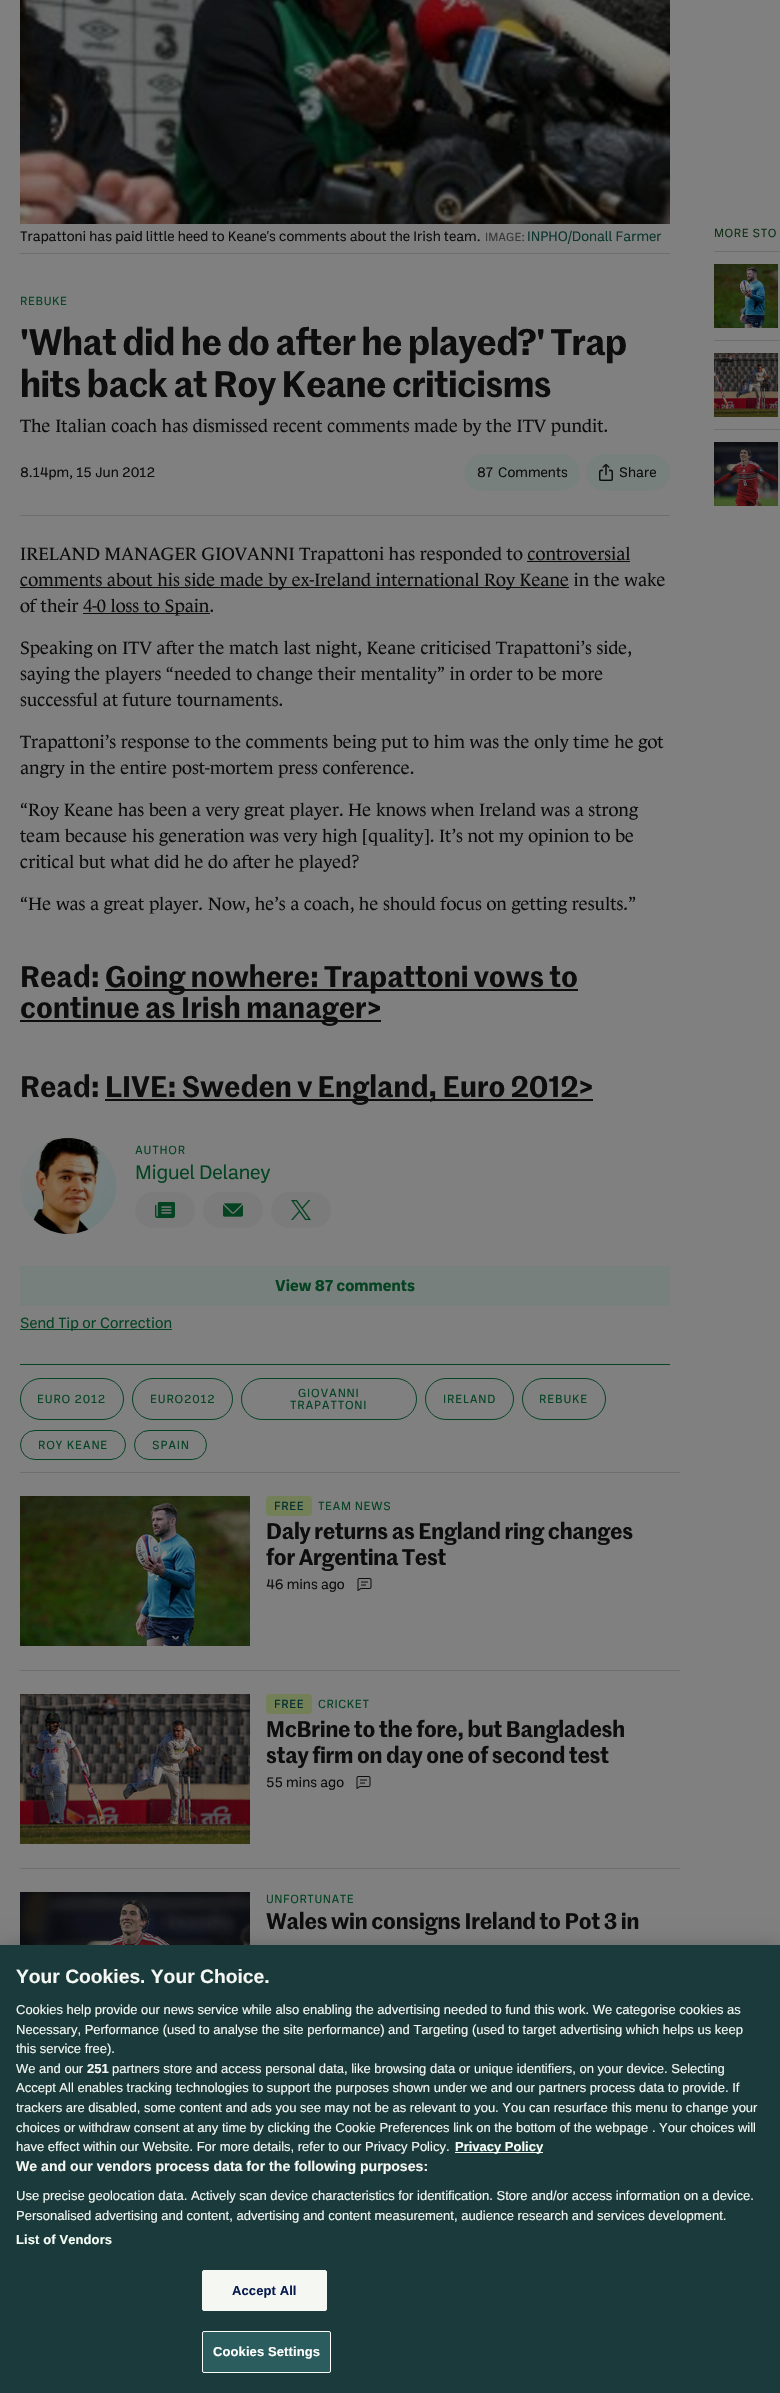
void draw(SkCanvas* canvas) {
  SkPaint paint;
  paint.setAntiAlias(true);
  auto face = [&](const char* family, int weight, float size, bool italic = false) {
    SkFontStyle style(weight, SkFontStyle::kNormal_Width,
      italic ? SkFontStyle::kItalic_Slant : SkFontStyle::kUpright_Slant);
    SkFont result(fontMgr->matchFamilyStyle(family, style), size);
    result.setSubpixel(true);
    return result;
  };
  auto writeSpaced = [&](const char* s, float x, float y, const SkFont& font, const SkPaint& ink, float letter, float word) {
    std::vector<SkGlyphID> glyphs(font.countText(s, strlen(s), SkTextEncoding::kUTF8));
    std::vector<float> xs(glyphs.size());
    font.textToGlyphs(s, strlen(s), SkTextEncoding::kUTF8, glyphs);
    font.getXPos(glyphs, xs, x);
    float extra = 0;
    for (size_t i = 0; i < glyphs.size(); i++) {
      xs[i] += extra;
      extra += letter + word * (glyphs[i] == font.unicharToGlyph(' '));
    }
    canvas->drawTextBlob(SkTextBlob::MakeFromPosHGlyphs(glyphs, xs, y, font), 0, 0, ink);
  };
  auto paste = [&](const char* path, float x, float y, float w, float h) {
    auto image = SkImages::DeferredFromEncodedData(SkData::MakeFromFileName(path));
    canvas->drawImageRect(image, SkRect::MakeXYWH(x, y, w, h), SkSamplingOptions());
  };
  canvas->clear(0xff808080);
  paste("img/1.png", 20, 0, 650, 224);
  paint.setColor(0xff6e6e6e);
  canvas->drawRect(SkRect::MakeXYWH(20, 253, 650, 1), paint);
  canvas->drawRect(SkRect::MakeXYWH(20, 515, 650, 1), paint);
  paint.setColor(0xff77807c);
  canvas->drawRoundRect(SkRect::MakeXYWH(464, 454, 116, 37), 18.5f, 18.5f, paint);
  canvas->drawRoundRect(SkRect::MakeXYWH(586, 454, 84, 37), 18.5f, 18.5f, paint);
  paste("img/2.png", 599, 464, 14, 17);
  {
    const struct { float x, y, w, h; SkColor color; } items[] = {
      {527, 561, 103, 1, 0xff0d0d0d},
      {20, 587, 549, 1, 0xff0d0d0d},
      {83, 613, 127, 1, 0xff0d0d0d},
      {105, 989, 473, 2, 0xff0d0d0d},
      {20, 1020, 361, 2, 0xff0d0d0d},
      {105, 1099, 488, 2, 0xff0d0d0d},
    };
    for (auto [x, y, w, h, color] : items) {
      paint.setColor(color);
      canvas->drawRect(SkRect::MakeXYWH(x, y, w, h), paint);
    }
  }
  paint.setColor(0xff767676);
  canvas->drawCircle(68, 1186, 48, paint);
  paste("img/3.png", 20, 1138, 96, 96);
  paint.setColor(0xff7b7b7b);
  canvas->drawRoundRect(SkRect::MakeXYWH(135, 1192, 60, 36), 18, 18, paint);
  paste("img/4.png", 155, 1202, 20, 16);
  canvas->drawRoundRect(SkRect::MakeXYWH(203, 1192, 60, 36), 18, 18, paint);
  paste("img/5.png", 223, 1203, 20, 14);
  canvas->drawRoundRect(SkRect::MakeXYWH(271, 1192, 60, 36), 18, 18, paint);
  paste("img/6.png", 291, 1200, 20, 20);
  {
    const struct { float x, y, w, h; SkColor color; } items[] = {
      {20, 1266, 650, 40, 0xff77807c},
      {20, 1329, 152, 1, 0xff054323},
      {20, 1364, 650, 1, 0xff054323},
    };
    for (auto [x, y, w, h, color] : items) {
      paint.setColor(color);
      canvas->drawRect(SkRect::MakeXYWH(x, y, w, h), paint);
    }
  }
  paint.setStroke(true);
  paint.setStrokeWidth(1);
  canvas->drawRoundRect(SkRect::MakeXYWH(20.5f, 1378.5f, 103, 41), 20.5f, 20.5f, paint);
  canvas->drawRoundRect(SkRect::MakeXYWH(132.5f, 1378.5f, 100, 41), 20.5f, 20.5f, paint);
  canvas->drawRoundRect(SkRect::MakeXYWH(241.5f, 1378.5f, 175, 41), 20.5f, 20.5f, paint);
  canvas->drawRoundRect(SkRect::MakeXYWH(425.5f, 1378.5f, 88, 41), 20.5f, 20.5f, paint);
  canvas->drawRoundRect(SkRect::MakeXYWH(522.5f, 1378.5f, 83, 41), 20.5f, 20.5f, paint);
  canvas->drawRoundRect(SkRect::MakeXYWH(20.5f, 1430.5f, 105, 29), 14.5f, 14.5f, paint);
  canvas->drawRoundRect(SkRect::MakeXYWH(134.5f, 1430.5f, 72, 29), 14.5f, 14.5f, paint);
  paint.setStroke(false);
  paint.setColor(0xff6e6e6e);
  canvas->drawRect(SkRect::MakeXYWH(20, 1472, 660, 1), paint);
  paste("img/7.png", 20, 1496, 230, 150);
  paint.setColor(0xff738057);
  canvas->drawRoundRect(SkRect::MakeXYWH(266, 1496, 46, 20), 4, 4, paint);
  paste("img/8.png", 357, 1578, 15, 13);
  paint.setColor(0xff6e6e6e);
  canvas->drawRect(SkRect::MakeXYWH(20, 1670, 660, 1), paint);
  paste("img/9.png", 20, 1694, 230, 150);
  paint.setColor(0xff738057);
  canvas->drawRoundRect(SkRect::MakeXYWH(266, 1694, 46, 20), 4, 4, paint);
  paste("img/8.png", 356, 1776, 15, 13);
  paint.setColor(0xff6e6e6e);
  canvas->drawRect(SkRect::MakeXYWH(20, 1868, 660, 1), paint);
  paste("img/10.png", 20, 1892, 230, 53);
  canvas->drawRect(SkRect::MakeXYWH(714, 251, 66, 1), paint);
  canvas->drawRect(SkRect::MakeXYWH(714, 340, 66, 1), paint);
  paste("img/11.png", 714, 264, 64, 64);
  canvas->drawRect(SkRect::MakeXYWH(714, 429, 66, 1), paint);
  paste("img/12.png", 714, 353, 64, 64);
  paste("img/13.png", 714, 442, 64, 64);
  paint.setColor(0x33000000);
  paint.setMaskFilter(SkMaskFilter::MakeBlur(kNormal_SkBlurStyle, 9));
  canvas->drawRect(SkRect::MakeXYWH(0, 1945, 780, 448), paint);
  paint.setMaskFilter(nullptr);
  paint.setColor(0xff1b3a3b);
  canvas->drawRect(SkRect::MakeXYWH(0, 1945, 780, 448), paint);
  paint.setColor(0xfff5fff7);
  canvas->drawRect(SkRect::MakeXYWH(455, 2152, 88, 1), paint);
  paint.setColor(0xfff4f7f2);
  canvas->drawRoundRect(SkRect::MakeXYWH(202.5f, 2270.5f, 124, 40), 1.5f, 1.5f, paint);
  paint.setStroke(true);
  canvas->drawRoundRect(SkRect::MakeXYWH(202.5f, 2270.5f, 124, 40), 1.5f, 1.5f, paint);
  paint.setStroke(false);
  paint.setColor(0xff2b5d5e);
  canvas->drawRoundRect(SkRect::MakeXYWH(202.5f, 2331.5f, 128, 41), 1.5f, 1.5f, paint);
  paint.setStroke(true);
  paint.setColor(0xffffffff);
  canvas->drawRoundRect(SkRect::MakeXYWH(202.5f, 2331.5f, 128, 41), 1.5f, 1.5f, paint);
  auto f0 = face("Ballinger", 400, 14);
  paint.setStroke(false);
  paint.setColor(0xff0d0d0d);
  writeSpaced("Trapattoni has paid little heed to Keane's comments about the Irish team.", 20, 241, f0, paint, -0.05f, 0);
  auto f1 = face("Ballinger", 400, 12);
  paint.setColor(0xff383838);
  canvas->drawString("IMAGE:", 485, 241, f1, paint);
  paint.setColor(0xff0d362e);
  writeSpaced("INPHO/Donall Farmer", 527, 241, f0, paint, -0.05f, 0);
  paint.setColor(0xff054323);
  writeSpaced("REBUKE", 20, 305, f1, paint, 0.5f, 0);
  auto f2 = face("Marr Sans", 600, 36);
  paint.setColor(0xff0d0d0d);
  writeSpaced("'What did he do after he played?' Trap", 20, 355, f2, paint, -0.55f, 0);
  writeSpaced("hits back at Roy Keane criticisms", 20, 397, f2, paint, -0.55f, 0);
  auto f3 = face("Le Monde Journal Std", 400, 18);
  canvas->drawString("The Italian coach has dismissed recent comments made by the ITV pundit.", 20, 432, f3, paint);
  {
    const struct { const char* s; float x, y; } items[] = {
      {"8.14pm, 15 Jun 2012", 20, 477},
      {"87", 477, 477},
      {"Comments", 498, 477},
      {"Share", 619, 477},
    };
    for (auto [s, x, y] : items) {
      canvas->drawString(s, x, y, f0, paint);
    }
  }
  {
    const struct { const char* s; float x, y; } items[] = {
      {"IRELAND MANAGER GIOVANNI Trapattoni has responded to controversial", 20, 560},
      {"comments about his side made by ex-Ireland international Roy Keane in the wake", 20, 586},
      {"of their", 20, 612},
      {"4-0 loss to Spain.", 83, 612},
      {"Speaking on ITV after the match last night, Keane criticised Trapattoni’s side,", 20, 654},
      {"saying the players “needed to change their mentality” in order to be more", 20, 680},
      {"successful at future tournaments.", 20, 706},
      {"Trapattoni’s response to the comments being put to him was the only time he got", 20, 748},
      {"angry in the entire post-mortem press conference.", 20, 774},
      {"“Roy Keane has been a very great player. He knows when Ireland was a strong", 20, 816},
      {"team because his generation was very high [quality]. It’s not my opinion to be", 20, 842},
      {"critical but what did he do after he played?", 20, 868},
      {"“He was a great player. Now, he’s a coach, he should focus on getting results.”", 20, 910},
    };
    for (auto [s, x, y] : items) {
      canvas->drawString(s, x, y, f3, paint);
    }
  }
  auto f4 = face("Marr Sans", 600, 29);
  {
    const struct { const char* s; float x, y; } items[] = {
      {"Read:", 20, 987},
      {"Going nowhere: Trapattoni vows to", 105, 987},
      {"continue as Irish manager>", 20, 1018},
      {"Read:", 20, 1097},
      {"LIVE: Sweden v England, Euro 2012>", 105, 1097},
    };
    for (auto [s, x, y] : items) {
      canvas->drawString(s, x, y, f4, paint);
    }
  }
  paint.setColor(0xff054323);
  writeSpaced("AUTHOR", 135, 1154, f1, paint, 0.75f, 0);
  auto f5 = face("Ballinger", 400, 20);
  writeSpaced("Miguel Delaney", 135, 1179, f5, paint, -0.25f, 0);
  auto f6 = face("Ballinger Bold", 700, 16);
  canvas->drawString("View 87 comments", 275, 1291, f6, paint);
  auto f7 = face("Ballinger", 400, 15);
  canvas->drawString("Send Tip or Correction", 20, 1328, f7, paint);
  {
    const struct { const char* s; float x, y; } items[] = {
      {"EURO 2012", 37, 1403},
      {"EURO2012", 150, 1403},
      {"GIOVANNI", 298, 1397},
      {"TRAPATTONI", 290, 1409},
      {"IRELAND", 443, 1403},
      {"REBUKE", 539, 1403},
      {"ROY KEANE", 38, 1449},
      {"SPAIN", 152, 1449},
    };
    for (auto [s, x, y] : items) {
      writeSpaced(s, x, y, f1, paint, 0.75f, 0);
    }
  }
  paint.setColor(0xff002c2d);
  writeSpaced("FREE", 274, 1510, f1, paint, 0.5f, 0);
  paint.setColor(0xff054323);
  writeSpaced("TEAM NEWS", 318, 1510, f1, paint, 0.5f, 0);
  auto f8 = face("Marr Sans", 600, 22);
  paint.setColor(0xff0d0d0d);
  writeSpaced("Daly returns as England ring changes", 266, 1539, f8, paint, -0.25f, 0);
  writeSpaced("for Argentina Test", 266, 1565, f8, paint, -0.25f, 0);
  writeSpaced("46 mins ago", 266, 1589, f0, paint, -0.05f, 0);
  paint.setColor(0xff002c2d);
  writeSpaced("FREE", 274, 1708, f1, paint, 0.5f, 0);
  paint.setColor(0xff054323);
  writeSpaced("CRICKET", 318, 1708, f1, paint, 0.5f, 0);
  paint.setColor(0xff0d0d0d);
  writeSpaced("McBrine to the fore, but Bangladesh", 266, 1737, f8, paint, -0.25f, 0);
  writeSpaced("stay firm on day one of second test", 266, 1763, f8, paint, -0.25f, 0);
  writeSpaced("55 mins ago", 266, 1787, f0, paint, -0.05f, 0);
  paint.setColor(0xff054323);
  writeSpaced("UNFORTUNATE", 266, 1903, f1, paint, 0.5f, 0);
  paint.setColor(0xff0d0d0d);
  writeSpaced("Wales win consigns Ireland to Pot 3 in", 266, 1929, f8, paint, -0.25f, 0);
  paint.setColor(0xff123117);
  writeSpaced("MORE STO", 714, 237, f1, paint, 0.5f, 0);
  auto f9 = face("Liberation Sans", 700, 19.25f);
  paint.setColor(0xfff4f7f2);
  canvas->drawString("Your Cookies. Your Choice.", 16, 1983, f9, paint);
  auto f10 = face("Liberation Sans", 400, 13);
  {
    const struct { const char* s; float x, y; } items[] = {
      {"Cookies help provide our news service while also enabling the advertising needed to fund this work. We categorise cookies as", 16, 2014},
      {"Necessary, Performance (used to analyse the site performance) and Targeting (used to target advertising which helps us keep", 16, 2034},
      {"this service free).", 16, 2053},
      {"We and our", 16, 2073},
    };
    for (auto [s, x, y] : items) {
      canvas->drawString(s, x, y, f10, paint);
    }
  }
  auto f11 = face("Liberation Sans", 700, 13);
  canvas->drawString("251", 87, 2073, f11, paint);
  {
    const struct { const char* s; float x, y; } items[] = {
      {"partners store and access personal data, like browsing data or unique identifiers, on your device. Selecting", 112, 2073},
      {"Accept All enables tracking technologies to support the purposes shown under we and our partners process data to provide. If", 16, 2092},
      {"trackers are disabled, some content and ads you see may not be as relevant to you. You can resurface this menu to change your", 16, 2112},
      {"choices or withdraw consent at any time by clicking the Cookie Preferences link on the bottom of the webpage . Your choices will", 16, 2132},
      {"have effect within our Website. For more details, refer to our Privacy Policy.", 16, 2151},
    };
    for (auto [s, x, y] : items) {
      canvas->drawString(s, x, y, f10, paint);
    }
  }
  paint.setColor(0xfff5fff7);
  canvas->drawString("Privacy Policy", 455, 2151, f11, paint);
  auto f12 = face("Liberation Sans", 700, 14.1f);
  paint.setColor(0xfff4f7f2);
  canvas->drawString("We and our vendors process data for the following purposes:", 16, 2171, f12, paint);
  canvas->drawString("Use precise geolocation data. Actively scan device characteristics for identification. Store and/or access information on a device.", 16, 2200, f10, paint);
  canvas->drawString("Personalised advertising and content, advertising and content measurement, audience research and services development.", 16, 2220, f10, paint);
  paint.setColor(0xfff5fff7);
  writeSpaced("List of Vendors", 16, 2244, f11, paint, 0.1f, 0);
  paint.setColor(0xff081b4f);
  writeSpaced("Accept All", 232, 2295, f11, paint, 0.1f, 0);
  paint.setColor(0xffffffff);
  writeSpaced("Cookies Settings", 213, 2356, f11, paint, 0.1f, 0);
}
